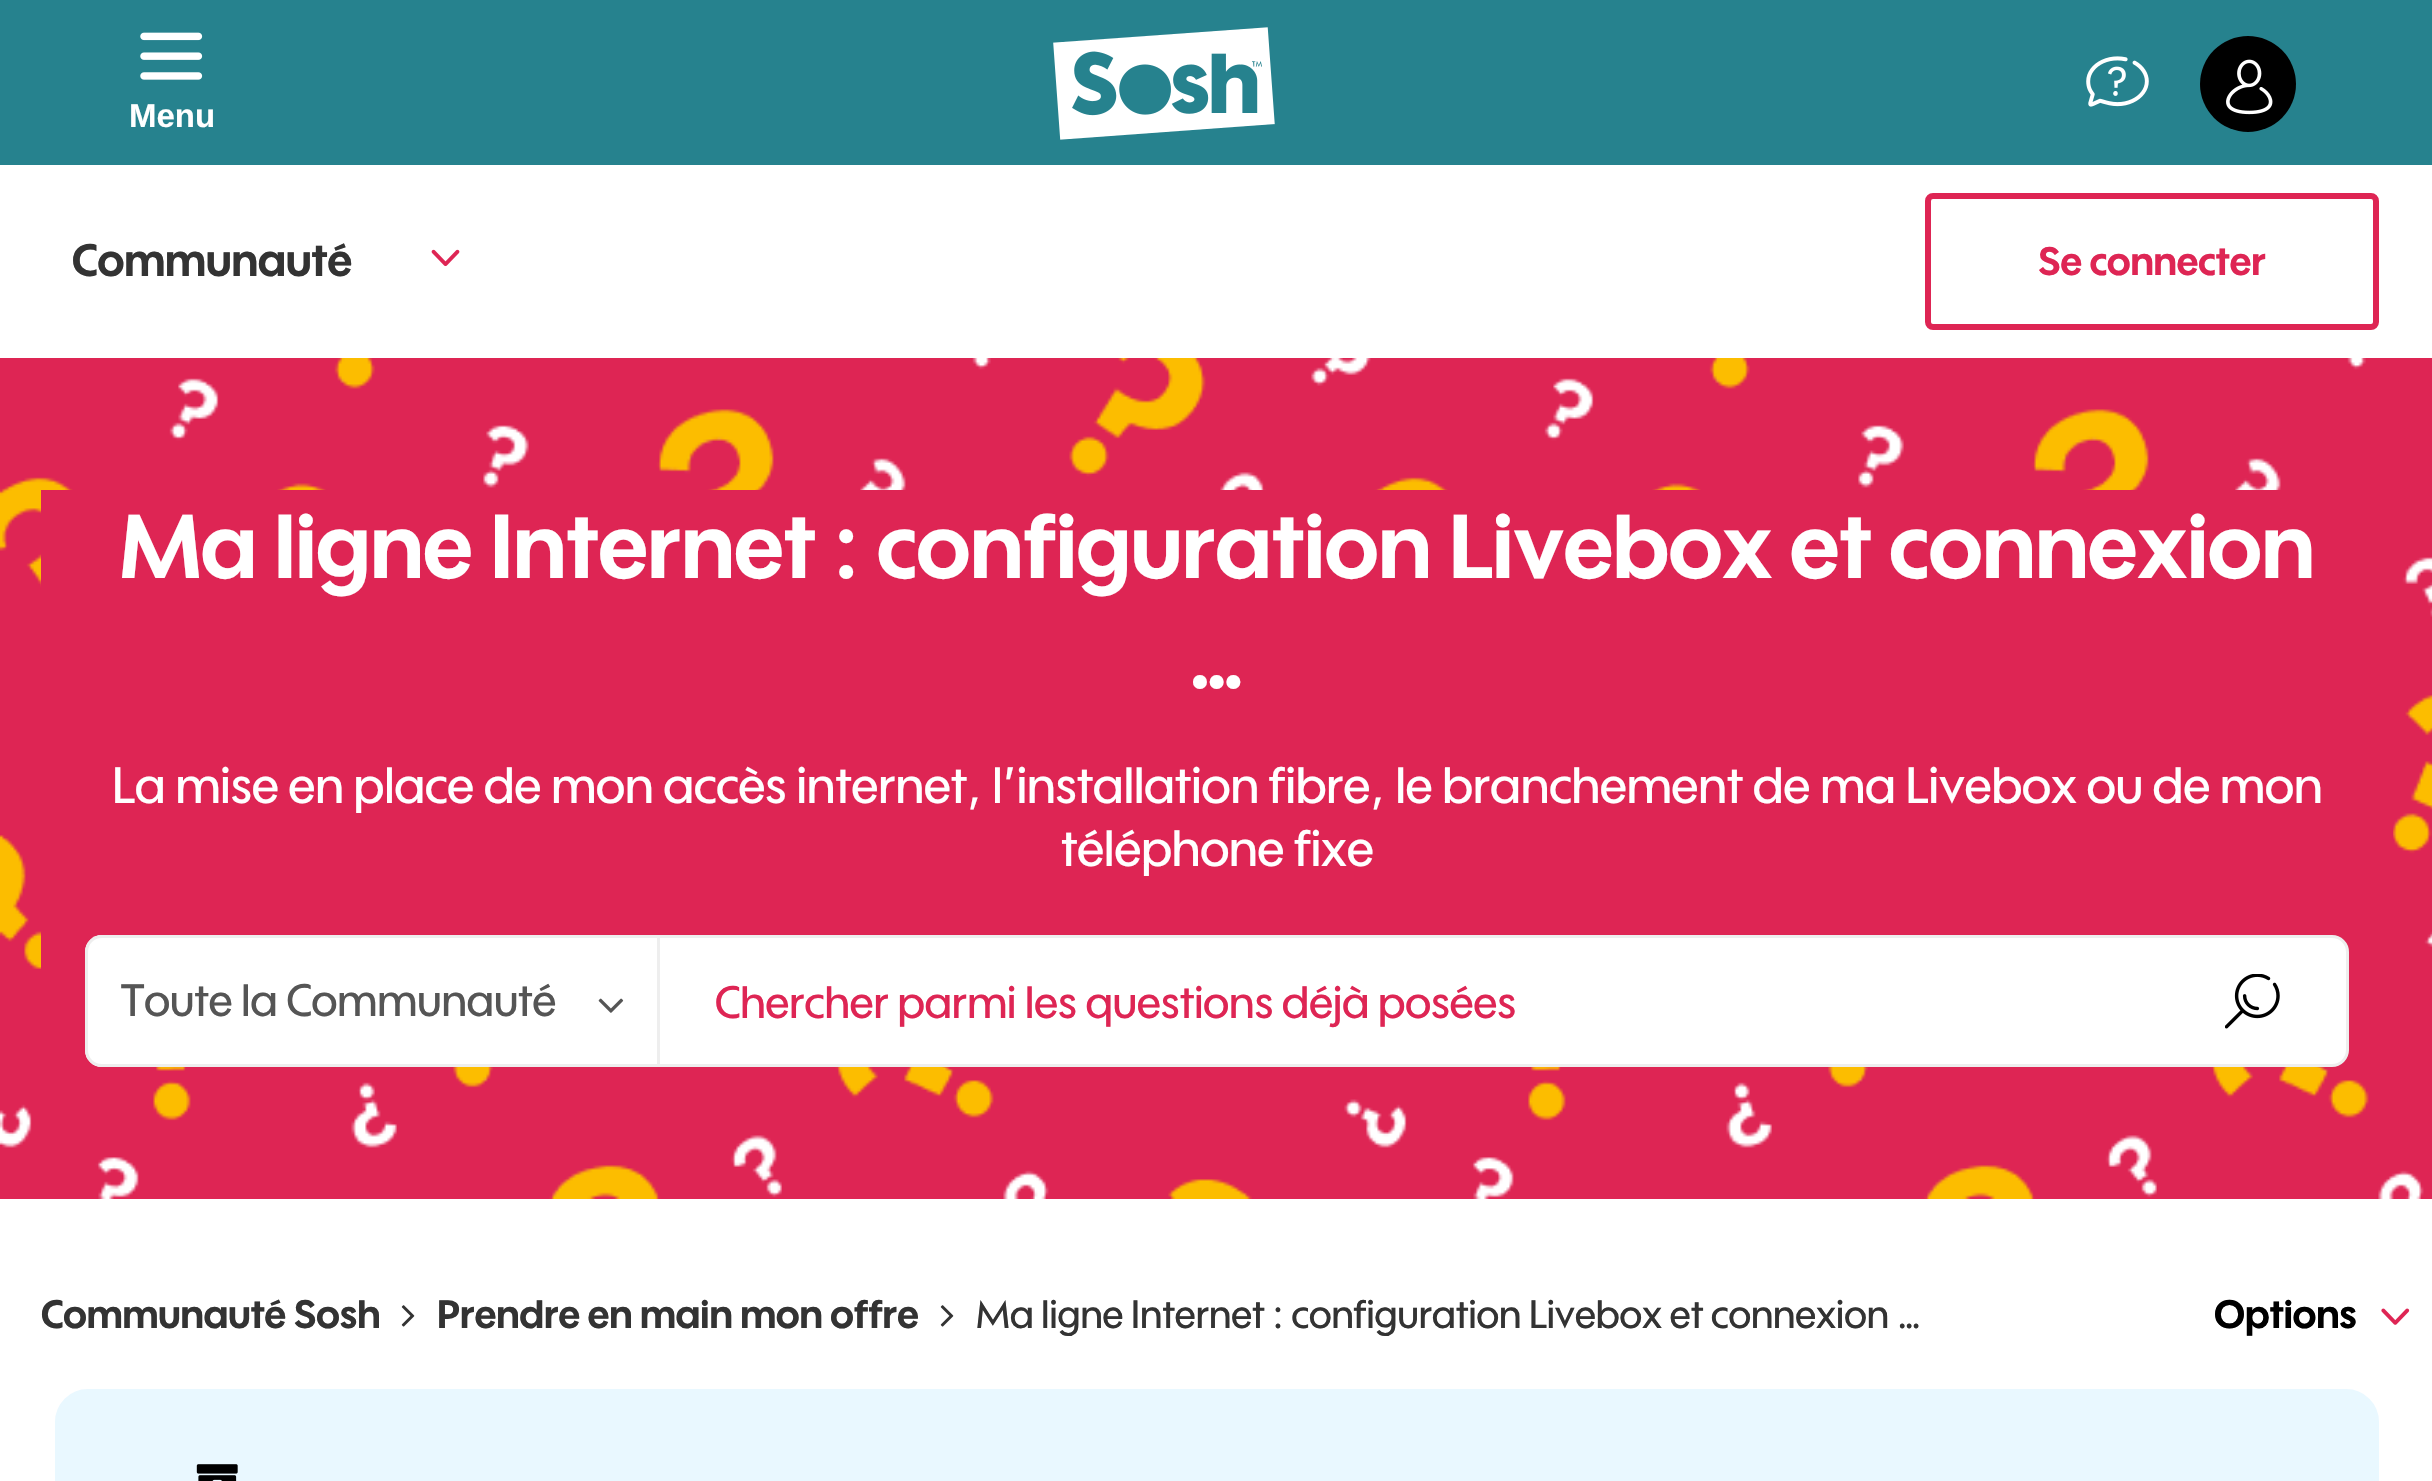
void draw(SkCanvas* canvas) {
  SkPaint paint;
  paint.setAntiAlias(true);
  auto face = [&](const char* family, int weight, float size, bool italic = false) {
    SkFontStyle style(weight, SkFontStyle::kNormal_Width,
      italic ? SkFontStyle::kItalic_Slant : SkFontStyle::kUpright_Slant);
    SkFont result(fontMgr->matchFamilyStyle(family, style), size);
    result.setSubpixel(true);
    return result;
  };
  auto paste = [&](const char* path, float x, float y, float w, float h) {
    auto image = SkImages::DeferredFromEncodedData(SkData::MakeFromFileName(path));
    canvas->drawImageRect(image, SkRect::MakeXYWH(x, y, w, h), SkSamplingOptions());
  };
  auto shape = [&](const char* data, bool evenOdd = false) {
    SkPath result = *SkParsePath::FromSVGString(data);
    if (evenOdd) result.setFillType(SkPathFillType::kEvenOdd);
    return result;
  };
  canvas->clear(0xffffffff);
  paint.setColor(0xff26828e);
  canvas->drawRect(SkRect::MakeXYWH(0, 0, 2432, 165), paint);
  paste("img/1.png", 140, 32, 63, 48);
  paste("img/2.png", 1053, 27, 222, 113);
  paste("img/3.png", 2086, 56, 63, 51);
  paint.setColor(0xff000000);
  canvas->drawCircle(2248, 84, 48, paint);
  paste("img/4.png", 2226, 59, 47, 56);
  paste("img/5.png", 431, 249, 29, 18);
  paint.setStroke(true);
  paint.setStrokeWidth(6);
  paint.setColor(0xffde2554);
  canvas->drawRoundRect(SkRect::MakeXYWH(1928, 196, 448, 131), 5, 5, paint);
  paste("img/6.png", 0, 358, 2432, 841);
  paint.setStroke(false);
  canvas->drawRect(SkRect::MakeXYWH(41, 490, 2352, 577), paint);
  paint.setColor(0xffffffff);
  canvas->drawPath(shape("M102 935H657V1067H102C92.5 1067 85 1059.5 85 1050V952C85 942.5 92.5 935 102 935Z"), paint);
  paint.setColor(0xffeeeeee);
  canvas->drawPath(shape("M102 935H657V1067H102C93 1067 85 1060 85 1050V952C85 942 93 935 102 935ZM102 938H657V1064H102C94 1064 88 1058 88 1050V952C88 944 94 938 102 938Z", true), paint);
  paste("img/7.png", 598, 998, 26, 15);
  paint.setColor(0xffffffff);
  canvas->drawPath(shape("M658.5 936.5H2332C2340.5 936.5 2347.5 943.5 2347.5 952V1050C2347.5 1058.5 2340.5 1065.5 2332 1065.5H658.5Z"), paint);
  paint.setStroke(true);
  paint.setStrokeWidth(3);
  paint.setColor(0xffeeeeee);
  canvas->drawPath(shape("M658.5 936.5H2332C2340.5 936.5 2347.5 943.5 2347.5 952V1050C2347.5 1058.5 2340.5 1065.5 2332 1065.5H658.5Z"), paint);
  paste("img/8.png", 2225, 974, 55, 55);
  paste("img/9.png", 401, 1305, 14, 22);
  paste("img/9.png", 940, 1305, 14, 22);
  paste("img/10.png", 2381, 1308, 29, 17);
  paint.setStroke(false);
  paint.setColor(0xffe9f8ff);
  canvas->drawRoundRect(SkRect::MakeXYWH(56.5f, 1390.5f, 2321, 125), 31.5f, 31.5f, paint);
  paint.setStroke(true);
  canvas->drawRoundRect(SkRect::MakeXYWH(56.5f, 1390.5f, 2321, 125), 31.5f, 31.5f, paint);
  paste("img/11.png", 196, 1464, 42, 17);
  auto f0 = face("Liberation Sans", 700, 33);
  paint.setStroke(false);
  paint.setColor(0xffffffff);
  canvas->drawString("Menu", 129, 127, f0, paint);
  auto f1 = face("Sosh", 700, 44);
  paint.setColor(0xff333333);
  canvas->drawString("Communauté", 72, 276, f1, paint);
  auto f2 = face("Sosh", 700, 38.5f);
  paint.setColor(0xffde2554);
  canvas->drawString("Se connecter", 2038, 275, f2, paint);
  auto f3 = face("Sosh", 700, 88);
  paint.setColor(0xffffffff);
  canvas->drawString("Ma ligne Internet : configuration Livebox et connexion", 120, 578, f3, paint);
  canvas->drawString("…", 1187, 688, f3, paint);
  auto f4 = face("Sosh", 500, 49.5f);
  canvas->drawString("La mise en place de mon accès internet, l’installation fibre, le branchement de ma Livebox ou de mon", 112, 803, f4, paint);
  canvas->drawString("téléphone fixe", 1061, 866, f4, paint);
  auto f5 = face("Sosh", 500, 44);
  paint.setColor(0xff555555);
  canvas->drawString("Toute la Communauté", 121, 1016, f5, paint);
  paint.setColor(0xffde2554);
  canvas->drawString("Chercher parmi les questions déjà posées", 715, 1018, f5, paint);
  paint.setColor(0xff333333);
  canvas->drawString("Communauté Sosh", 41, 1328, f2, paint);
  canvas->drawString("Prendre en main mon offre", 437, 1328, f2, paint);
  auto f6 = face("Sosh", 500, 38.5f);
  canvas->drawString("Ma ligne Internet : configuration Livebox et connexion …", 976, 1328, f6, paint);
  paint.setColor(0xff000000);
  canvas->drawString("Options", 2214, 1328, f2, paint);
}
